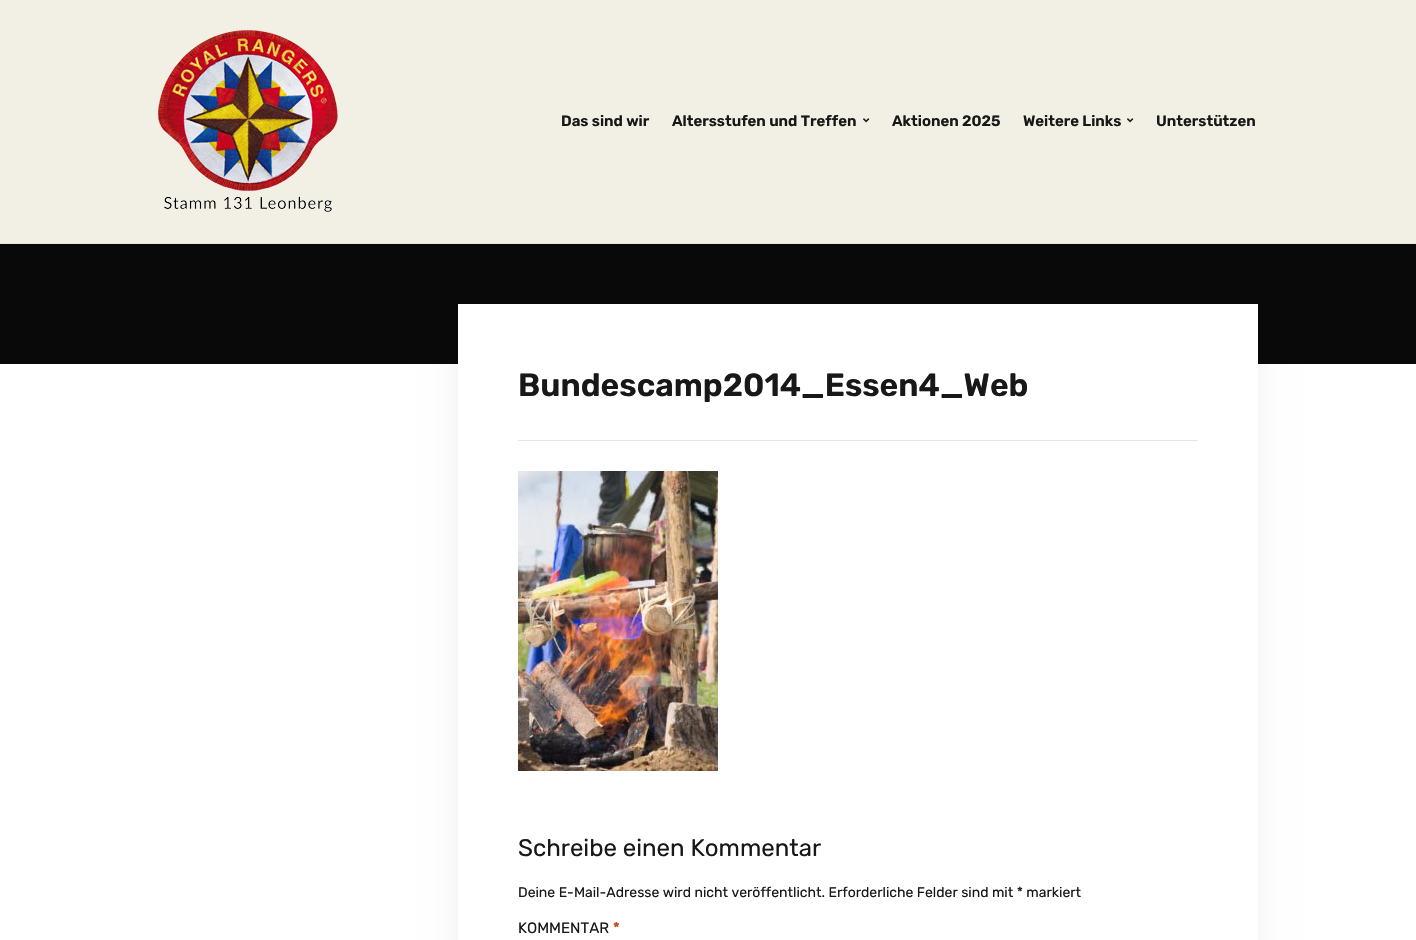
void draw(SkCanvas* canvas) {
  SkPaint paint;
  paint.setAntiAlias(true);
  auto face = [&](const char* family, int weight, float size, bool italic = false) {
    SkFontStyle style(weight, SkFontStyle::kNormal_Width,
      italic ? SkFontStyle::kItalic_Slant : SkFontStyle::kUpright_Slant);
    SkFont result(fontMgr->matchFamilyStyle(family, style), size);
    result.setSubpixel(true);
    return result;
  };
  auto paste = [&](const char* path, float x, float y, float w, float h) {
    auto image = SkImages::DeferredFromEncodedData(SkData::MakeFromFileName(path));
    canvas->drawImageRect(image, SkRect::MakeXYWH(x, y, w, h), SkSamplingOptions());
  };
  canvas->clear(0xffffffff);
  paint.setColor(0xfff2f0e4);
  canvas->drawRect(SkRect::MakeXYWH(0, 0, 1416, 243), paint);
  paint.setColor(0xffe7e3e0);
  canvas->drawRect(SkRect::MakeXYWH(0, 243, 1416, 1), paint);
  paste("img/1.png", 158, 30, 180, 182);
  paste("img/2.png", 863, 118, 7, 5);
  paste("img/2.png", 1127, 118, 7, 5);
  paint.setColor(0xff090909);
  canvas->drawRect(SkRect::MakeXYWH(0, 244, 1416, 120), paint);
  paint.setColor(0x0f000000);
  paint.setMaskFilter(SkMaskFilter::MakeBlur(kNormal_SkBlurStyle, 15));
  canvas->drawRect(SkRect::MakeXYWH(458, 304, 800, 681), paint);
  paint.setMaskFilter(nullptr);
  paint.setColor(0xffffffff);
  canvas->drawRect(SkRect::MakeXYWH(458, 304, 800, 636), paint);
  paint.setColor(0xffe6e6e6);
  canvas->drawRect(SkRect::MakeXYWH(518, 440, 680, 1), paint);
  paste("img/3.png", 518, 471, 200, 300);
  auto f0 = face("Rubik", 600, 15);
  paint.setColor(0xff181818);
  {
    const struct { const char* s; float x, y; } items[] = {
      {"Das sind wir", 561, 126},
      {"Altersstufen und Treffen", 672, 126},
      {"Aktionen 2025", 892, 126},
      {"Weitere Links", 1023, 126},
      {"Unterstützen", 1156, 126},
    };
    for (auto [s, x, y] : items) {
      canvas->drawString(s, x, y, f0, paint);
    }
  }
  auto f1 = face("Rubik", 600, 32);
  canvas->drawString("Bundescamp2014_Essen4_Web", 518, 396, f1, paint);
  auto f2 = face("Rubik", 400, 24);
  canvas->drawString("Schreibe einen Kommentar", 518, 856, f2, paint);
  auto f3 = face("Rubik", 400, 14);
  canvas->drawString("Deine E-Mail-Adresse wird nicht veröffentlicht. Erforderliche Felder sind mit * markiert", 518, 897, f3, paint);
  auto f4 = face("Rubik", 400, 15);
  canvas->drawString("KOMMENTAR", 518, 933, f4, paint);
  paint.setColor(0xffc94913);
  canvas->drawString("*", 613, 933, f0, paint);
}
